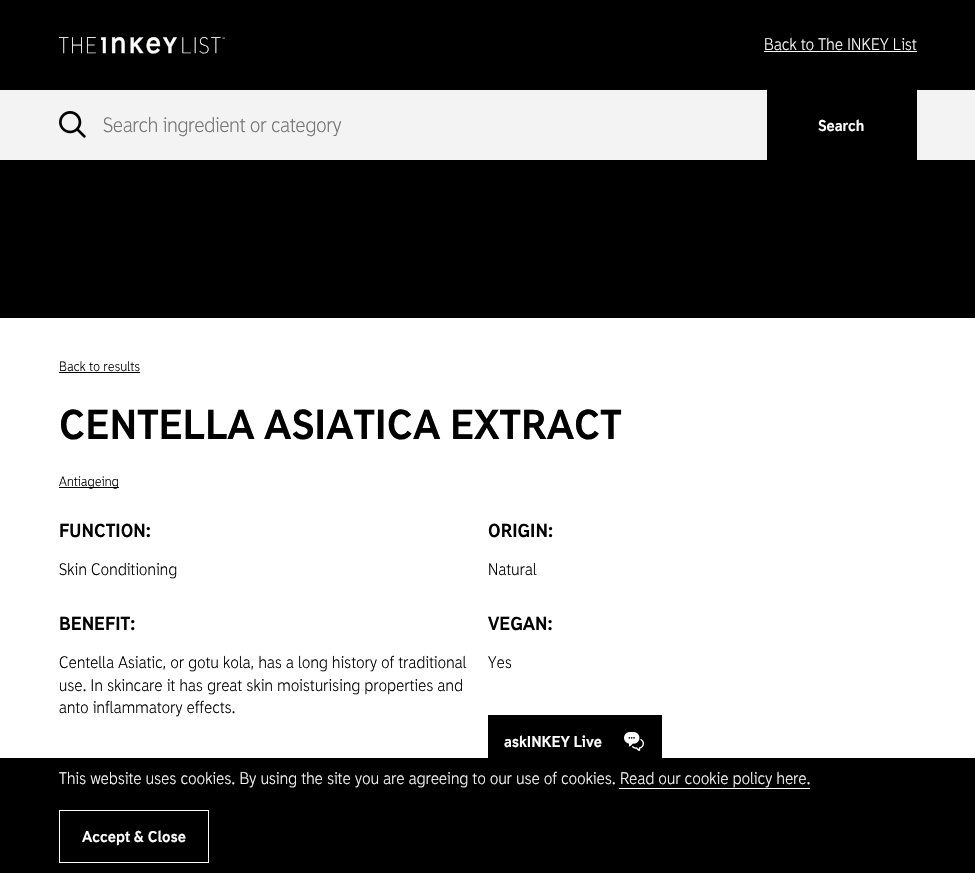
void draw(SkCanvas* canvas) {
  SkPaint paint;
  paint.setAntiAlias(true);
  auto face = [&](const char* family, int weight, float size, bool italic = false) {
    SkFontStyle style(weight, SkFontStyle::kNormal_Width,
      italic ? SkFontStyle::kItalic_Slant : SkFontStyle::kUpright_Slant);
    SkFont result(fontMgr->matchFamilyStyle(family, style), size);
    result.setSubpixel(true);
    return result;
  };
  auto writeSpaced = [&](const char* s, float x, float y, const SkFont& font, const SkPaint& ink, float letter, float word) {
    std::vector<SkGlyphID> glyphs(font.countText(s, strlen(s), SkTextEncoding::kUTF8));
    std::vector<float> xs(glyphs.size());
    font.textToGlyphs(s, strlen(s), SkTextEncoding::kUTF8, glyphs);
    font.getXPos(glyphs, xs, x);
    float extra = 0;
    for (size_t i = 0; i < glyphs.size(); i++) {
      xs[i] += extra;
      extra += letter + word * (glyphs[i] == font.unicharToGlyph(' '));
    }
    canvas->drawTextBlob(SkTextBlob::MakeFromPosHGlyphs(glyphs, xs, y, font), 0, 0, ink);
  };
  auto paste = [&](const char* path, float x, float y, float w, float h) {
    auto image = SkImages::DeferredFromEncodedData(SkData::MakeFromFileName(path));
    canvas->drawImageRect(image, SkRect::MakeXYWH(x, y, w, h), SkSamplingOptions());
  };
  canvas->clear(0xff000000);
  paste("img/1.png", 59, 37, 166, 17);
  paint.setColor(0xffffffff);
  canvas->drawRect(SkRect::MakeXYWH(764, 51, 153, 1), paint);
  paint.setColor(0xfff3f3f3);
  canvas->drawRect(SkRect::MakeXYWH(0, 90, 975, 70), paint);
  paste("img/2.png", 59, 111, 27, 27);
  {
    const struct { float x, y, w, h; SkColor color; } items[] = {
      {767, 90, 150, 70, 0xff000000},
      {0, 318, 975, 440, 0xffffffff},
      {59, 372, 81, 1, 0xff000000},
      {59, 487, 60, 1, 0xff000000},
      {488, 715, 174, 43, 0xff000000},
    };
    for (auto [x, y, w, h, color] : items) {
      paint.setColor(color);
      canvas->drawRect(SkRect::MakeXYWH(x, y, w, h), paint);
    }
  }
  paste("img/3.png", 624, 732, 20, 19);
  paint.setColor(0xffffffff);
  canvas->drawRect(SkRect::MakeXYWH(619, 788, 191, 1), paint);
  paint.setStroke(true);
  paint.setStrokeWidth(1);
  canvas->drawRect(SkRect::MakeXYWH(59.5f, 810.5f, 149, 52), paint);
  auto f0 = face("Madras", 300, 16);
  paint.setStroke(false);
  writeSpaced("Back to The INKEY List", 764, 50, f0, paint, 0.3f, 0);
  auto f1 = face("Madras", 300, 20);
  paint.setColor(0xff757575);
  canvas->drawString("Search ingredient or category", 103, 132, f1, paint);
  auto f2 = face("Madras", 800, 15);
  paint.setColor(0xffffffff);
  canvas->drawString("Search", 818, 131, f2, paint);
  auto f3 = face("Madras", 300, 13);
  paint.setColor(0xff000000);
  writeSpaced("Back to results", 59, 371, f3, paint, 0.3f, 0);
  auto f4 = face("Madras", 800, 40);
  canvas->drawString("CENTELLA ASIATICA EXTRACT", 59, 439, f4, paint);
  writeSpaced("Antiageing", 59, 486, f3, paint, 0.3f, 0);
  auto f5 = face("Madras", 800, 18);
  canvas->drawString("FUNCTION:", 59, 537, f5, paint);
  writeSpaced("Skin Conditioning", 59, 575, f0, paint, 0.3f, 0);
  canvas->drawString("BENEFIT:", 59, 630, f5, paint);
  {
    const struct { const char* s; float x, y; } items[] = {
      {"Centella Asiatic, or gotu kola, has a long history of traditional", 59, 668},
      {"use. In skincare it has great skin moisturising properties and", 59, 691},
      {"anto inflammatory effects.", 59, 713},
    };
    for (auto [s, x, y] : items) {
      writeSpaced(s, x, y, f0, paint, 0.3f, 0);
    }
  }
  canvas->drawString("ORIGIN:", 488, 537, f5, paint);
  writeSpaced("Natural", 488, 575, f0, paint, 0.3f, 0);
  canvas->drawString("VEGAN:", 488, 630, f5, paint);
  writeSpaced("Yes", 488, 668, f0, paint, 0.3f, 0);
  paint.setColor(0xffffffff);
  canvas->drawString("askINKEY Live", 504, 747, f2, paint);
  writeSpaced("This website uses cookies. By using the site you are agreeing to our use of cookies. Read our cookie policy here.", 59, 784, f0, paint, 0.3f, 0);
  canvas->drawString("Accept & Close", 82, 842, f2, paint);
}
